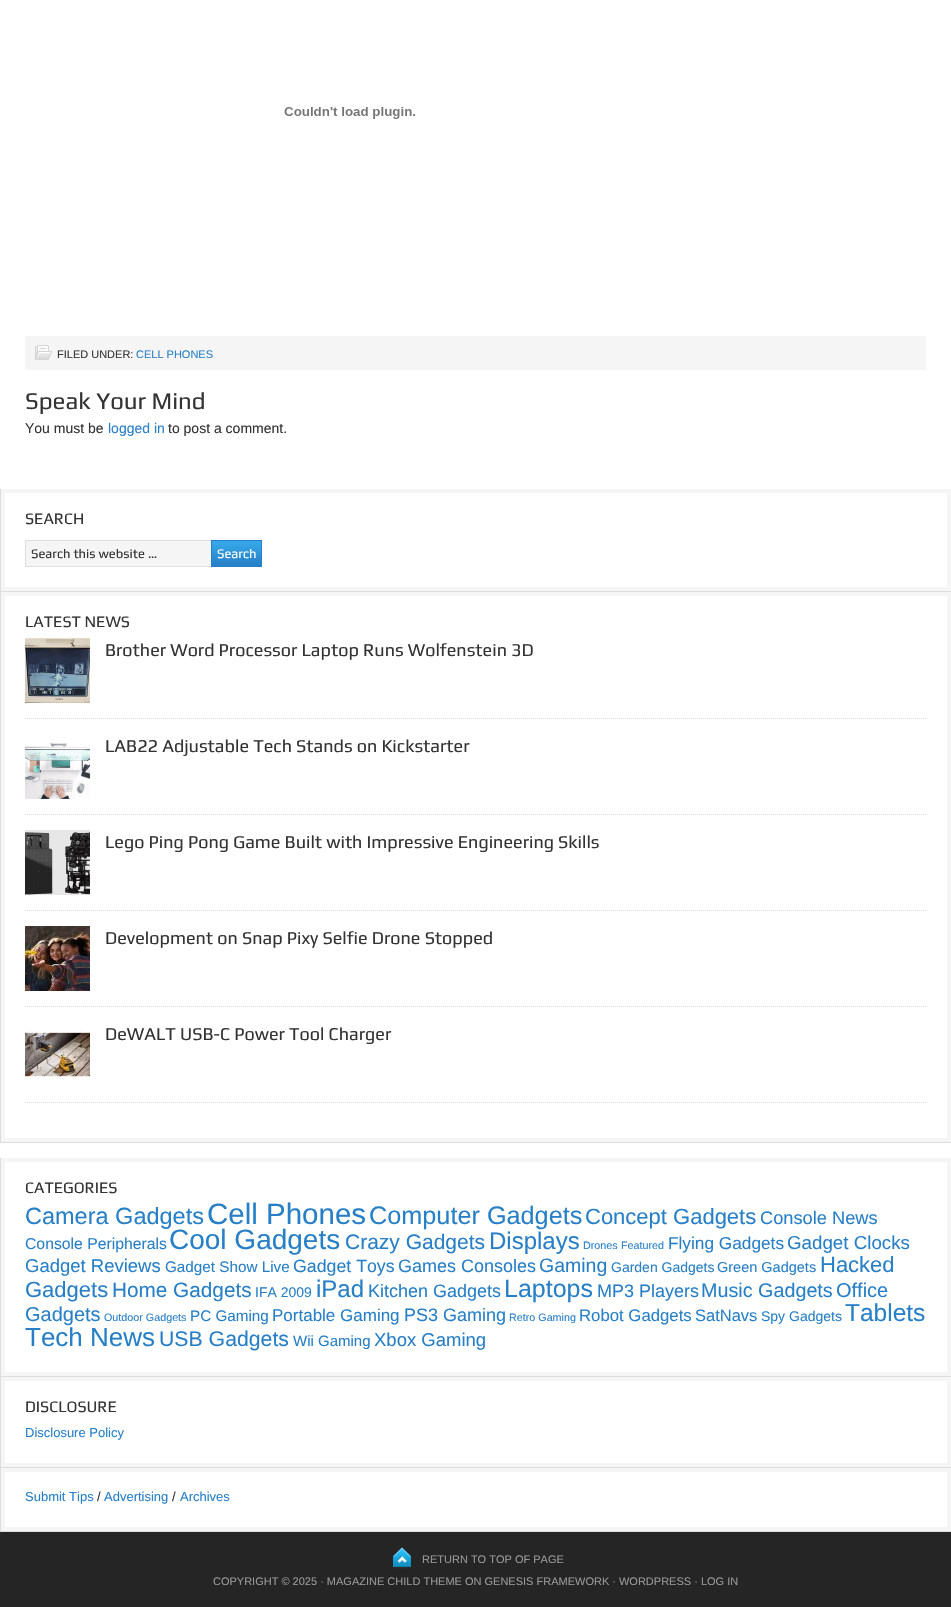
void draw(SkCanvas* canvas) {
  SkPaint paint;
  paint.setAntiAlias(true);
  auto face = [&](const char* family, int weight, float size, bool italic = false) {
    SkFontStyle style(weight, SkFontStyle::kNormal_Width,
      italic ? SkFontStyle::kItalic_Slant : SkFontStyle::kUpright_Slant);
    SkFont result(fontMgr->matchFamilyStyle(family, style), size);
    result.setSubpixel(true);
    return result;
  };
  auto paste = [&](const char* path, float x, float y, float w, float h) {
    auto image = SkImages::DeferredFromEncodedData(SkData::MakeFromFileName(path));
    canvas->drawImageRect(image, SkRect::MakeXYWH(x, y, w, h), SkSamplingOptions());
  };
  auto shape = [&](const char* data, bool evenOdd = false) {
    SkPath result = *SkParsePath::FromSVGString(data);
    if (evenOdd) result.setFillType(SkPathFillType::kEvenOdd);
    return result;
  };
  canvas->clear(0xffffffff);
  paste("img/1.png", 284, 107, 131, 12);
  paint.setColor(0xfff5f5f5);
  canvas->drawRect(SkRect::MakeXYWH(25, 336, 901, 34), paint);
  paste("img/2.png", 35, 345, 17, 15);
  paint.setColor(0xffdddddd);
  canvas->drawRect(SkRect::MakeXYWH(0, 591, 951, 1), paint);
  canvas->drawRect(SkRect::MakeXYWH(0, 489, 1, 103), paint);
  paint.setStroke(true);
  paint.setStrokeWidth(4);
  paint.setColor(0xfff5f5f5);
  canvas->drawRect(SkRect::MakeXYWH(3, 491, 946, 98), paint);
  paint.setStroke(false);
  canvas->drawRect(SkRect::MakeXYWH(26, 541, 185, 25), paint);
  paint.setStroke(true);
  paint.setStrokeWidth(1);
  paint.setColor(0xffdddddd);
  canvas->drawRect(SkRect::MakeXYWH(25.5f, 540.5f, 191, 26), paint);
  paste("img/3.png", 212, 541, 49, 25);
  paint.setColor(0xff2780c7);
  canvas->drawRect(SkRect::MakeXYWH(211.5f, 540.5f, 50, 26), paint);
  paint.setStroke(false);
  paint.setColor(0xffdddddd);
  canvas->drawRect(SkRect::MakeXYWH(0, 1142, 951, 1), paint);
  canvas->drawRect(SkRect::MakeXYWH(0, 592, 1, 551), paint);
  paint.setStroke(true);
  paint.setStrokeWidth(4);
  paint.setColor(0xfff5f5f5);
  canvas->drawRect(SkRect::MakeXYWH(3, 594, 946, 546), paint);
  paint.setStrokeWidth(1);
  paint.setColor(0xffdddddd);
  paint.setPathEffect(SkDashPathEffect::Make({{1, 1}}, 0));
  canvas->drawPath(shape("M25 718.5H927"), paint);
  paint.setPathEffect(nullptr);
  paste("img/4.png", 25, 638, 65, 65);
  paint.setPathEffect(SkDashPathEffect::Make({{1, 1}}, 0));
  canvas->drawPath(shape("M25 814.5H927"), paint);
  paint.setPathEffect(nullptr);
  paste("img/5.png", 25, 742, 65, 57);
  paint.setPathEffect(SkDashPathEffect::Make({{1, 1}}, 0));
  canvas->drawPath(shape("M25 910.5H927"), paint);
  paint.setPathEffect(nullptr);
  paste("img/6.png", 25, 830, 65, 65);
  paint.setPathEffect(SkDashPathEffect::Make({{1, 1}}, 0));
  canvas->drawPath(shape("M25 1006.5H927"), paint);
  paint.setPathEffect(nullptr);
  paste("img/7.png", 25, 926, 65, 65);
  paint.setPathEffect(SkDashPathEffect::Make({{1, 1}}, 0));
  canvas->drawPath(shape("M25 1102.5H927"), paint);
  paint.setPathEffect(nullptr);
  paste("img/8.png", 25, 1030, 65, 48);
  paint.setStroke(false);
  canvas->drawRect(SkRect::MakeXYWH(0, 1376, 951, 1), paint);
  canvas->drawRect(SkRect::MakeXYWH(0, 1158, 1, 219), paint);
  paint.setStroke(true);
  paint.setStrokeWidth(4);
  paint.setColor(0xfff5f5f5);
  canvas->drawRect(SkRect::MakeXYWH(3, 1160, 946, 214), paint);
  paint.setStroke(false);
  paint.setColor(0xffdddddd);
  canvas->drawRect(SkRect::MakeXYWH(0, 1467, 951, 1), paint);
  canvas->drawRect(SkRect::MakeXYWH(0, 1377, 1, 91), paint);
  paint.setStroke(true);
  paint.setColor(0xfff5f5f5);
  canvas->drawRect(SkRect::MakeXYWH(3, 1379, 946, 86), paint);
  paint.setStroke(false);
  paint.setColor(0xffdddddd);
  canvas->drawRect(SkRect::MakeXYWH(0, 1531, 951, 1), paint);
  canvas->drawRect(SkRect::MakeXYWH(0, 1468, 1, 64), paint);
  paint.setStroke(true);
  paint.setColor(0xfff5f5f5);
  canvas->drawRect(SkRect::MakeXYWH(3, 1470, 946, 59), paint);
  paint.setStroke(false);
  paint.setColor(0xff252525);
  canvas->drawRect(SkRect::MakeXYWH(0, 1532, 951, 75), paint);
  paste("img/9.png", 391, 1547, 24, 22);
  auto f0 = face("Liberation Sans", 400, 11);
  paint.setColor(0xff333333);
  canvas->drawString("FILED UNDER:", 57, 358, f0, paint);
  paint.setColor(0xff2780c7);
  canvas->drawString("CELL PHONES", 136, 358, f0, paint);
  auto f1 = face("Play", 400, 24);
  paint.setColor(0xff333333);
  canvas->drawString("Speak Your Mind", 25, 409, f1, paint);
  auto f2 = face("Liberation Sans", 400, 14);
  canvas->drawString("You must be", 25, 433, f2, paint);
  paint.setColor(0xff2780c7);
  canvas->drawString("logged in", 108, 433, f2, paint);
  paint.setColor(0xff333333);
  canvas->drawString("to post a comment.", 168, 433, f2, paint);
  auto f3 = face("Play", 400, 16);
  canvas->drawString("SEARCH", 25, 524, f3, paint);
  auto f4 = face("Play", 400, 13);
  canvas->drawString("Search this website …", 31, 558, f4, paint);
  paint.setColor(0xffffffff);
  canvas->drawString("Search", 217, 558, f4, paint);
  paint.setColor(0xff333333);
  canvas->drawString("LATEST NEWS", 25, 627, f3, paint);
  auto f5 = face("Play", 400, 18);
  {
    const struct { const char* s; float x, y; } items[] = {
      {"Brother Word Processor Laptop Runs Wolfenstein 3D", 105, 656},
      {"LAB22 Adjustable Tech Stands on Kickstarter", 105, 752},
      {"Lego Ping Pong Game Built with Impressive Engineering Skills", 105, 848},
      {"Development on Snap Pixy Selfie Drone Stopped", 105, 944},
      {"DeWALT USB-C Power Tool Charger", 105, 1040},
    };
    for (auto [s, x, y] : items) {
      canvas->drawString(s, x, y, f5, paint);
    }
  }
  canvas->drawString("CATEGORIES", 25, 1193, f3, paint);
  auto f6 = face("Liberation Sans", 400, 23.5f);
  paint.setColor(0xff2780c7);
  canvas->drawString("Camera Gadgets", 25, 1224, f6, paint);
  auto f7 = face("Liberation Sans", 400, 29.5f);
  canvas->drawString("Cell Phones", 207, 1224, f7, paint);
  auto f8 = face("Liberation Sans", 400, 25.25f);
  canvas->drawString("Computer Gadgets", 369, 1224, f8, paint);
  auto f9 = face("Liberation Sans", 400, 22);
  canvas->drawString("Concept Gadgets", 585, 1224, f9, paint);
  auto f10 = face("Liberation Sans", 400, 18.25f);
  canvas->drawString("Console News", 760, 1224, f10, paint);
  auto f11 = face("Liberation Sans", 400, 15.75f);
  canvas->drawString("Console Peripherals", 25, 1249, f11, paint);
  auto f12 = face("Liberation Sans", 400, 28);
  canvas->drawString("Cool Gadgets", 169, 1249, f12, paint);
  auto f13 = face("Liberation Sans", 400, 21);
  canvas->drawString("Crazy Gadgets", 345, 1249, f13, paint);
  auto f14 = face("Liberation Sans", 400, 24);
  canvas->drawString("Displays", 489, 1249, f14, paint);
  auto f15 = face("Liberation Sans", 400, 10.75f);
  canvas->drawString("Drones", 583, 1249, f15, paint);
  canvas->drawString("Featured", 621, 1249, f15, paint);
  auto f16 = face("Liberation Sans", 400, 17.25f);
  canvas->drawString("Flying Gadgets", 668, 1249, f16, paint);
  auto f17 = face("Liberation Sans", 400, 18.75f);
  canvas->drawString("Gadget Clocks", 787, 1249, f17, paint);
  auto f18 = face("Liberation Sans", 400, 18.5f);
  canvas->drawString("Gadget Reviews", 25, 1272, f18, paint);
  auto f19 = face("Liberation Sans", 400, 15.25f);
  canvas->drawString("Gadget Show Live", 165, 1272, f19, paint);
  auto f20 = face("Liberation Sans", 400, 17.75f);
  canvas->drawString("Gadget Toys", 293, 1272, f20, paint);
  auto f21 = face("Liberation Sans", 400, 18);
  canvas->drawString("Games Consoles", 398, 1272, f21, paint);
  auto f22 = face("Liberation Sans", 400, 19.5f);
  canvas->drawString("Gaming", 539, 1272, f22, paint);
  canvas->drawString("Garden Gadgets", 611, 1272, f2, paint);
  auto f23 = face("Liberation Sans", 400, 14.5f);
  canvas->drawString("Green Gadgets", 717, 1272, f23, paint);
  canvas->drawString("Hacked", 820, 1272, f9, paint);
  canvas->drawString("Gadgets", 25, 1297, f9, paint);
  auto f24 = face("Liberation Sans", 400, 20.75f);
  canvas->drawString("Home Gadgets", 112, 1297, f24, paint);
  canvas->drawString("IFA 2009", 255, 1297, f2, paint);
  canvas->drawString("iPad", 316, 1297, f14, paint);
  canvas->drawString("Kitchen Gadgets", 368, 1297, f21, paint);
  auto f25 = face("Liberation Sans", 400, 25);
  canvas->drawString("Laptops", 504, 1297, f25, paint);
  canvas->drawString("MP3 Players", 597, 1297, f21, paint);
  auto f26 = face("Liberation Sans", 400, 19.75f);
  canvas->drawString("Music Gadgets", 701, 1297, f26, paint);
  auto f27 = face("Liberation Sans", 400, 20);
  canvas->drawString("Office", 836, 1297, f27, paint);
  canvas->drawString("Gadgets", 25, 1321, f27, paint);
  canvas->drawString("Outdoor Gadgets", 104, 1321, f15, paint);
  canvas->drawString("PC Gaming", 190, 1321, f19, paint);
  auto f28 = face("Liberation Sans", 400, 17);
  canvas->drawString("Portable Gaming", 272, 1321, f28, paint);
  canvas->drawString("PS3 Gaming", 404, 1321, f21, paint);
  canvas->drawString("Retro Gaming", 509, 1321, f15, paint);
  auto f29 = face("Liberation Sans", 400, 16.75f);
  canvas->drawString("Robot Gadgets", 579, 1321, f29, paint);
  auto f30 = face("Liberation Sans", 400, 16.5f);
  canvas->drawString("SatNavs", 695, 1321, f30, paint);
  canvas->drawString("Spy Gadgets", 761, 1321, f2, paint);
  auto f31 = face("Liberation Sans", 400, 24.5f);
  canvas->drawString("Tablets", 845, 1321, f31, paint);
  auto f32 = face("Liberation Sans", 400, 26);
  canvas->drawString("Tech News", 25, 1346, f32, paint);
  auto f33 = face("Liberation Sans", 400, 21.25f);
  canvas->drawString("USB Gadgets", 159, 1346, f33, paint);
  auto f34 = face("Liberation Sans", 400, 15);
  canvas->drawString("Wii Gaming", 293, 1346, f34, paint);
  canvas->drawString("Xbox Gaming", 374, 1346, f18, paint);
  paint.setColor(0xff333333);
  canvas->drawString("DISCLOSURE", 25, 1412, f3, paint);
  auto f35 = face("Liberation Sans", 400, 13);
  paint.setColor(0xff2780c7);
  canvas->drawString("Disclosure Policy", 25, 1437, f35, paint);
  canvas->drawString("Submit Tips", 25, 1501, f35, paint);
  paint.setColor(0xff333333);
  canvas->drawString("/", 97, 1501, f35, paint);
  paint.setColor(0xff2780c7);
  canvas->drawString("Advertising", 104, 1501, f35, paint);
  paint.setColor(0xff333333);
  canvas->drawString("/", 172, 1501, f35, paint);
  paint.setColor(0xff2780c7);
  canvas->drawString("Archives", 180, 1501, f35, paint);
  paint.setColor(0xff999999);
  canvas->drawString("RETURN TO TOP OF PAGE", 422, 1563, f0, paint);
  canvas->drawString("COPYRIGHT © 2025 · MAGAZINE CHILD THEME ON GENESIS FRAMEWORK · WORDPRESS · LOG IN", 213, 1585, f0, paint);
}
